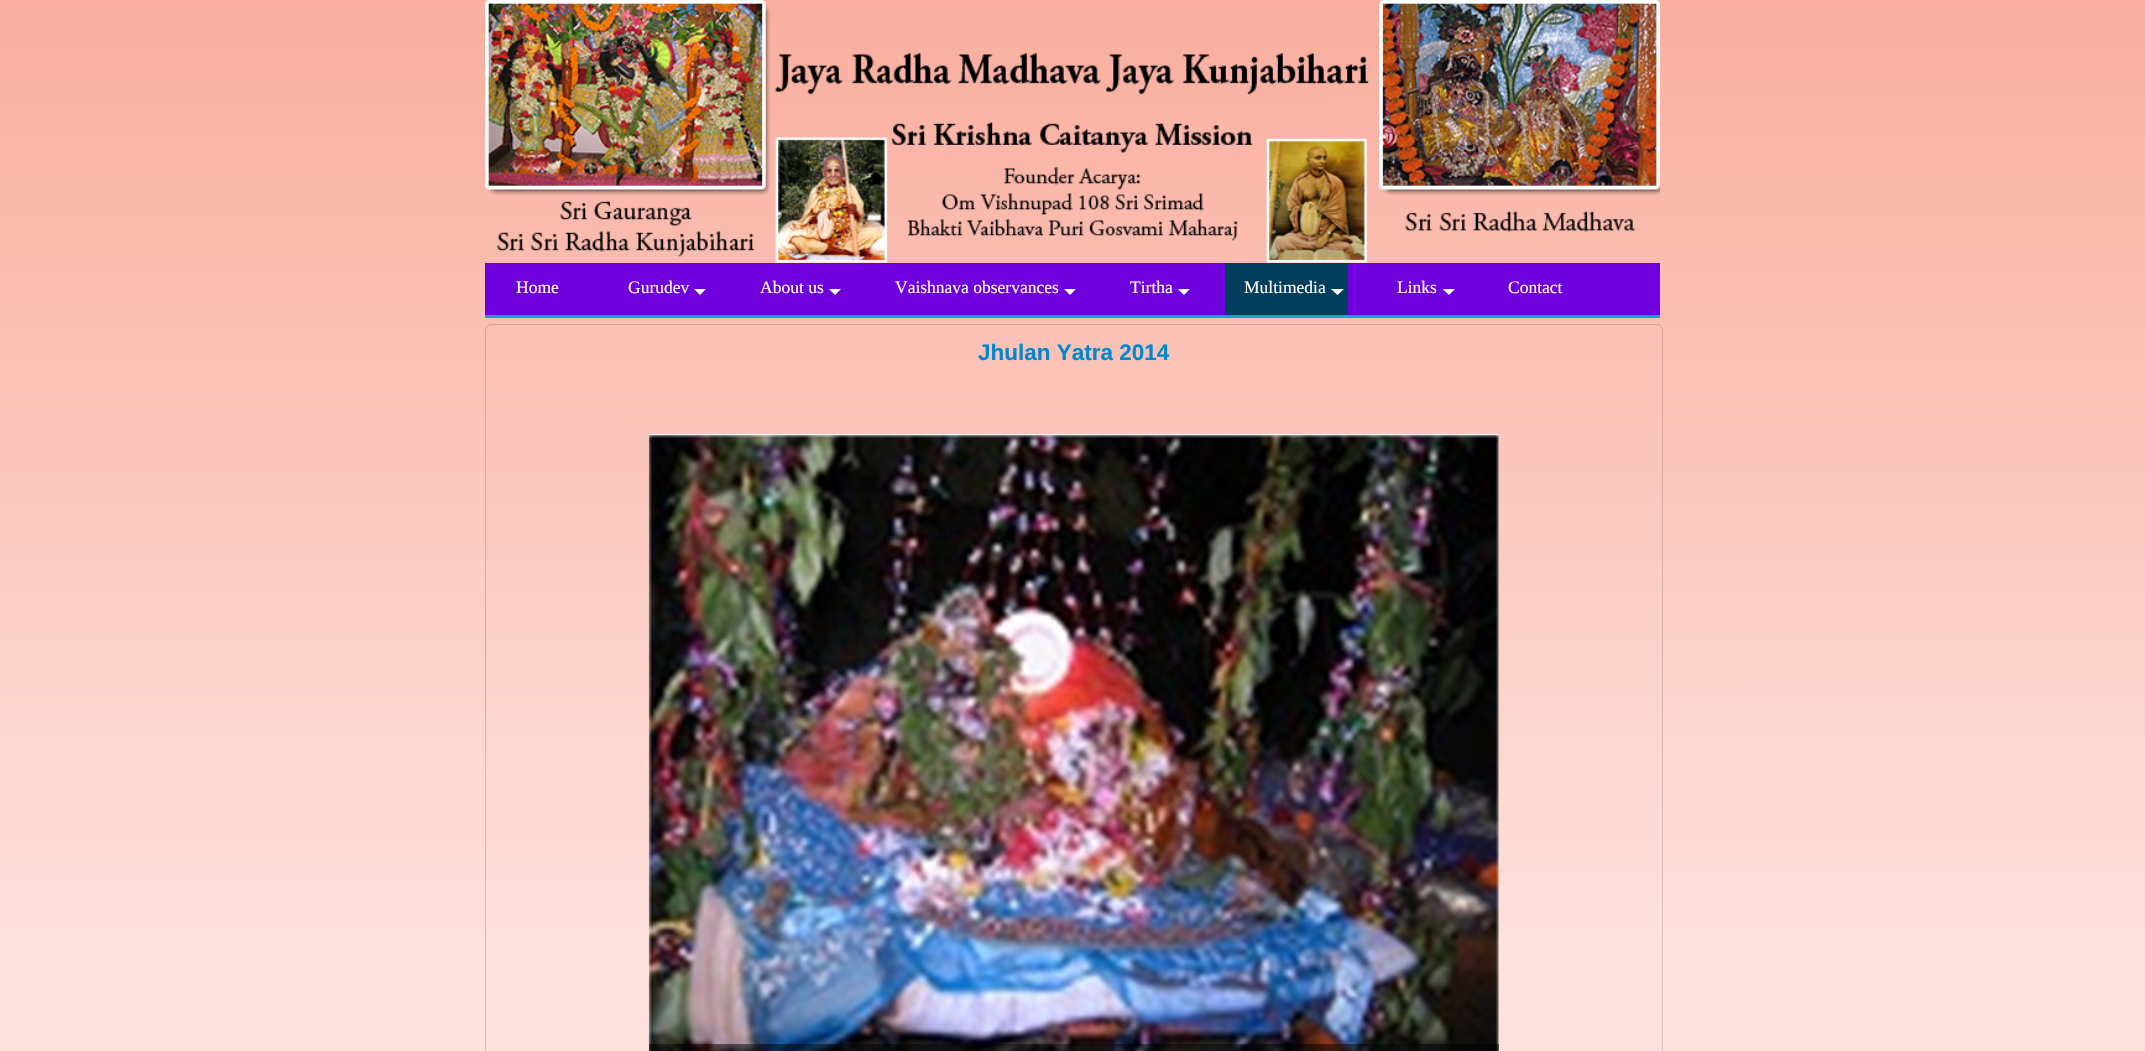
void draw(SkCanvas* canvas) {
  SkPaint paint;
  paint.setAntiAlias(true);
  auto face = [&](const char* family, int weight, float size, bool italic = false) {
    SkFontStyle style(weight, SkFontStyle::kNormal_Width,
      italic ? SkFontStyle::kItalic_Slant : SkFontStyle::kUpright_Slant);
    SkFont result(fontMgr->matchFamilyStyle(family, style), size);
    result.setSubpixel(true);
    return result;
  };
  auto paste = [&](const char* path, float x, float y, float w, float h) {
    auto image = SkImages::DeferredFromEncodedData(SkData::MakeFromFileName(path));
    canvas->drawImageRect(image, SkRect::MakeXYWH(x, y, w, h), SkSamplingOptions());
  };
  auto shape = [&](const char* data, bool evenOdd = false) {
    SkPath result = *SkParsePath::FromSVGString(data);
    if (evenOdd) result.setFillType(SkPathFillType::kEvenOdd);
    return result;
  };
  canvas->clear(0xffffffff);
  {
    const SkColor colors[] = {0xfff9ae9f, 0xfffde1dc};
    const float stops[] = {0, 0.8f};
    const SkPoint ends[] = {{1072, 0}, {1073, 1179}};
    paint.setShader(SkGradientShader::MakeLinear(ends, colors, stops, 2, SkTileMode::kClamp));
    paint.setAlpha(255);
  }
  canvas->drawRect(SkRect::MakeXYWH(0, 0, 2145, 1051), paint);
  paste("img/1.png", 485, 0, 1175, 263);
  paint.setShader(nullptr);
  paint.setColor(0xff6f00de);
  canvas->drawRect(SkRect::MakeXYWH(485, 263, 1175, 52), paint);
  paint.setColor(0xff0fa1e0);
  canvas->drawRect(SkRect::MakeXYWH(485, 315, 1175, 3), paint);
  paint.setColor(0xffffffff);
  canvas->drawPath(shape("M694 289H706L700 295Z"), paint);
  canvas->drawPath(shape("M829 289H841L835 295Z"), paint);
  canvas->drawPath(shape("M1064 289H1076L1070 295Z"), paint);
  canvas->drawPath(shape("M1177.5 289H1190L1184 295Z"), paint);
  paint.setColor(0xff013e5b);
  canvas->drawRect(SkRect::MakeXYWH(1225, 263, 123, 52), paint);
  paint.setColor(0xffffffff);
  canvas->drawPath(shape("M1331 289H1344L1337.5 295Z"), paint);
  canvas->drawPath(shape("M1442.5 289H1455L1449 295Z"), paint);
  paint.setStroke(true);
  paint.setStrokeWidth(1);
  paint.setColor(0x26000000);
  canvas->drawRoundRect(SkRect::MakeXYWH(485.5f, 324.5f, 1177, 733), 5.5f, 5.5f, paint);
  paste("img/2.png", 648, 433, 851, 618);
  paint.setStroke(false);
  paint.setColor(0x80000000);
  canvas->drawRect(SkRect::MakeXYWH(649, 1044, 850, 7), paint);
  auto f0 = face("Liberation Serif", 400, 17.5f);
  paint.setColor(0xffffffff);
  {
    const struct { const char* s; float x, y; } items[] = {
      {"Home", 516, 293},
      {"Gurudev", 628, 293},
      {"About us", 760, 293},
      {"Vaishnava observances", 895, 293},
      {"Tirtha", 1130, 293},
      {"Multimedia", 1244, 293},
      {"Links", 1397, 293},
      {"Contact", 1508, 293},
    };
    for (auto [s, x, y] : items) {
      canvas->drawString(s, x, y, f0, paint);
    }
  }
  auto f1 = face("Liberation Sans", 700, 22.5f);
  paint.setColor(0xff0088cc);
  canvas->drawString("Jhulan Yatra 2014", 978, 360, f1, paint);
}
